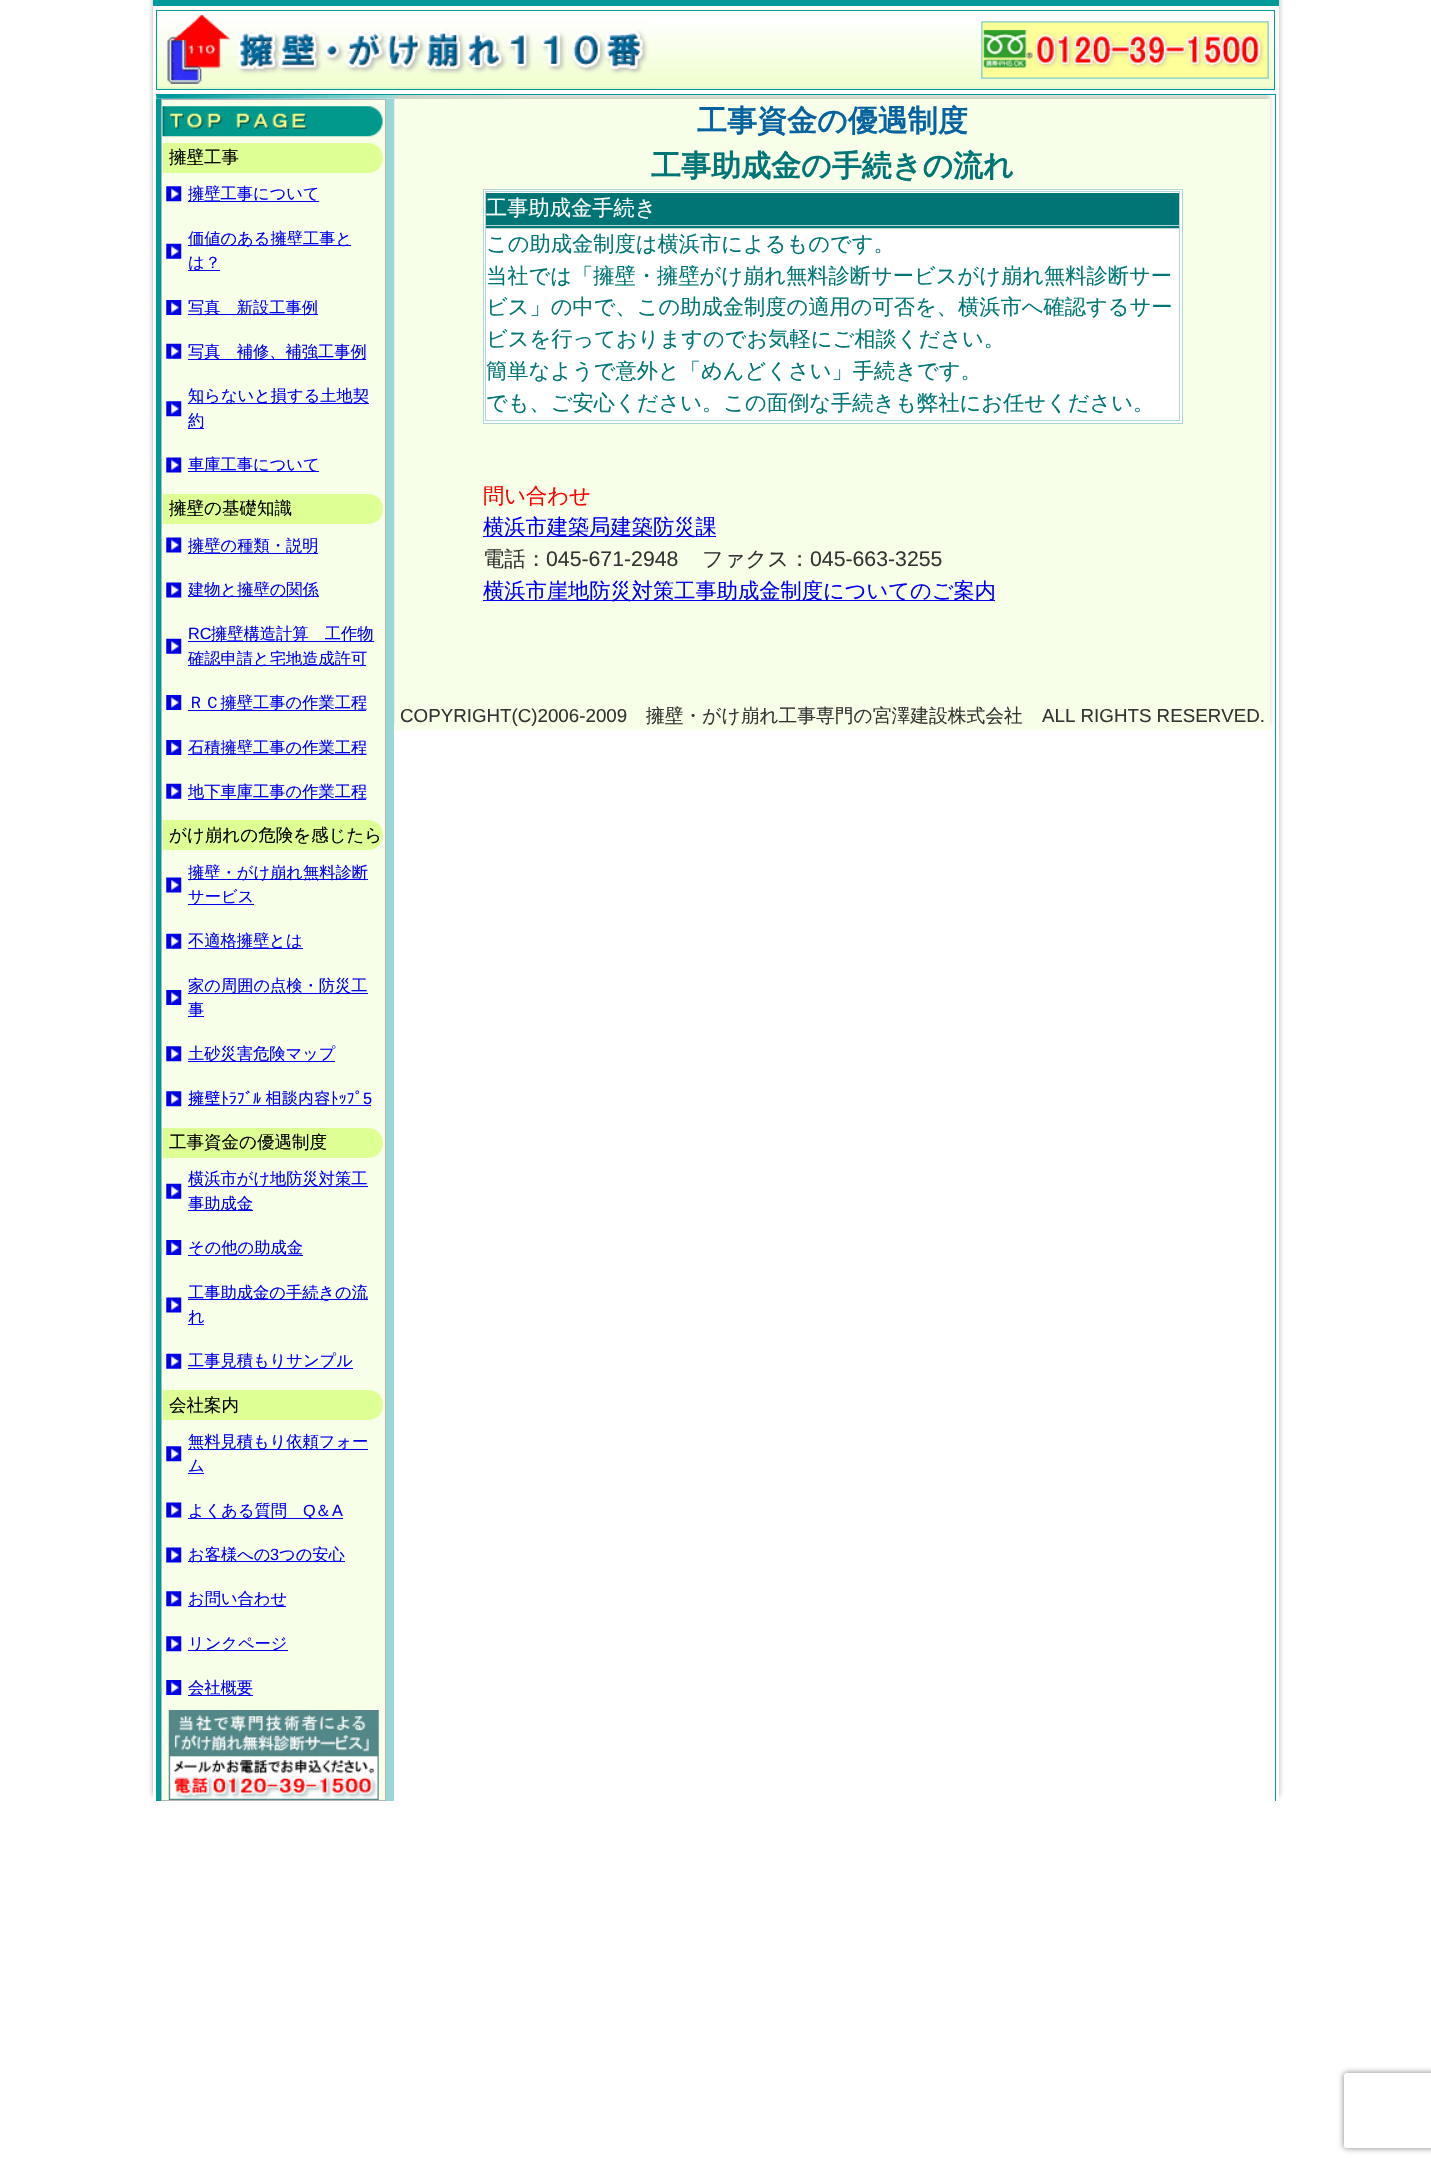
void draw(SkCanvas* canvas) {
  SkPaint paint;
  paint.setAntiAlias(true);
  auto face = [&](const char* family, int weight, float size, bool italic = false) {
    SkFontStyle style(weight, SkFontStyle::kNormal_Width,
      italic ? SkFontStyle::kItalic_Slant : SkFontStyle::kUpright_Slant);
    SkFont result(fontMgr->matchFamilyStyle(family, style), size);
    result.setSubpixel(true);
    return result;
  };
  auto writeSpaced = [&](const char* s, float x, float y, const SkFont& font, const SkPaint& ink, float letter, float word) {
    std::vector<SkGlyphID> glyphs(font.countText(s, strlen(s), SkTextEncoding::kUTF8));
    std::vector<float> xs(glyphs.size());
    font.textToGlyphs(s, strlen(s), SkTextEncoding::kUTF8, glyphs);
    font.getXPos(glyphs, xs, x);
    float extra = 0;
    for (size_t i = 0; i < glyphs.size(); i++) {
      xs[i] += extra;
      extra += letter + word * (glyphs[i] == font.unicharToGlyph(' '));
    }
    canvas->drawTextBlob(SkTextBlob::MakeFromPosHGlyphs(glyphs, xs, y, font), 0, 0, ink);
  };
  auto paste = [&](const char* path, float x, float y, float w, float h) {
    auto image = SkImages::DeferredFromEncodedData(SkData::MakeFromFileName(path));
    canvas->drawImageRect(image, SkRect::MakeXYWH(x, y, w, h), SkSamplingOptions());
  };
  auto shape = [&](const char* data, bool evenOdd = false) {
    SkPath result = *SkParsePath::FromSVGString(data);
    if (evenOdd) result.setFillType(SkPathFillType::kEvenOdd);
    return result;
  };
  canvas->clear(0xffffffff);
  canvas->save();
  canvas->clipPath(shape("M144 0H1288V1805H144ZM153 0H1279V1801H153Z", true), true);
  paint.setColor(0xffacacac);
  paint.setMaskFilter(SkMaskFilter::MakeBlur(kNormal_SkBlurStyle, 2.5f));
  canvas->drawRect(SkRect::MakeXYWH(153, -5, 1126, 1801), paint);
  paint.setMaskFilter(nullptr);
  canvas->restore();
  paint.setColor(0xff01999a);
  canvas->drawRect(SkRect::MakeXYWH(153, 0, 1126, 6), paint);
  paste("img/4.png", 156, 95, 370, 4);
  canvas->drawRect(SkRect::MakeXYWH(156, 94, 1120, 1), paint);
  canvas->drawRect(SkRect::MakeXYWH(1275, 94, 1, 1707), paint);
  canvas->save();
  canvas->clipRect(SkRect::MakeXYWH(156, 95, 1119, 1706));
  paint.setColor(0xffcfd3c5);
  paint.setMaskFilter(SkMaskFilter::MakeBlur(kNormal_SkBlurStyle, 2.5f));
  canvas->drawRect(SkRect::MakeXYWH(395, 94, 875, 631), paint);
  paint.setMaskFilter(nullptr);
  canvas->restore();
  paste("img/1.png", 157, 23, 1117, 66);
  paint.setStroke(true);
  paint.setStrokeWidth(1);
  paint.setColor(0xff01999a);
  canvas->drawRect(SkRect::MakeXYWH(156.5f, 10.5f, 1118, 79), paint);
  paste("img/2.png", 157, 14, 492, 75);
  paste("img/3.png", 981, 21, 288, 58);
  paint.setStroke(false);
  paint.setColor(0xff9bd7d7);
  canvas->drawRect(SkRect::MakeXYWH(386, 99, 8, 1702), paint);
  paint.setColor(0xff009999);
  canvas->drawRect(SkRect::MakeXYWH(156, 99, 5, 1702), paint);
  paint.setColor(0xfff7ffe8);
  canvas->drawRect(SkRect::MakeXYWH(161.5f, 99.5f, 224, 1701), paint);
  paint.setStroke(true);
  paint.setColor(0xffb5b5b7);
  canvas->drawRect(SkRect::MakeXYWH(161.5f, 99.5f, 224, 1701), paint);
  paste("img/5.png", 162, 106, 221, 31);
  paint.setStroke(false);
  paint.setColor(0xffdeff94);
  canvas->drawPath(shape("M163 143H368C376.5 143 383 149.5 383 158C383 166.5 376.5 173 368 173H163Z"), paint);
  paste("img/6.png", 166, 186, 16, 16);
  paint.setColor(0xff0000ee);
  canvas->drawRect(SkRect::MakeXYWH(188, 201, 131, 1), paint);
  paste("img/7.png", 166, 243, 16, 16);
  canvas->drawRect(SkRect::MakeXYWH(188, 245, 163, 1), paint);
  canvas->drawRect(SkRect::MakeXYWH(188, 270, 32, 1), paint);
  paste("img/8.png", 166, 300, 16, 15);
  canvas->drawRect(SkRect::MakeXYWH(188, 314, 130, 1), paint);
  paste("img/7.png", 166, 343, 16, 16);
  canvas->drawRect(SkRect::MakeXYWH(188, 359, 178, 1), paint);
  paste("img/6.png", 166, 401, 16, 16);
  canvas->drawRect(SkRect::MakeXYWH(188, 403, 181, 1), paint);
  canvas->drawRect(SkRect::MakeXYWH(188, 428, 16, 1), paint);
  paste("img/9.png", 166, 457, 16, 16);
  canvas->drawRect(SkRect::MakeXYWH(188, 471, 131, 1), paint);
  paint.setColor(0xffdeff94);
  canvas->drawPath(shape("M163 494H368C376.5 494 383 500.5 383 509C383 517.5 376.5 524 368 524H163Z"), paint);
  paste("img/9.png", 166, 537, 16, 16);
  paint.setColor(0xff0000ee);
  canvas->drawRect(SkRect::MakeXYWH(188, 553, 130, 1), paint);
  paste("img/10.png", 166, 582, 16, 16);
  canvas->drawRect(SkRect::MakeXYWH(188, 596, 131, 1), paint);
  paste("img/7.png", 166, 638, 16, 16);
  canvas->drawRect(SkRect::MakeXYWH(188, 641, 186, 1), paint);
  canvas->drawRect(SkRect::MakeXYWH(188, 665, 178, 1), paint);
  paste("img/8.png", 166, 695, 16, 15);
  canvas->drawRect(SkRect::MakeXYWH(188, 710, 178, 1), paint);
  paste("img/8.png", 166, 740, 16, 15);
  canvas->drawRect(SkRect::MakeXYWH(188, 754, 178, 1), paint);
  paste("img/7.png", 166, 783, 16, 16);
  canvas->drawRect(SkRect::MakeXYWH(188, 799, 178, 1), paint);
  paint.setColor(0xffdeff94);
  canvas->drawPath(shape("M163 820H368C376.5 820 383 826.5 383 835C383 843.5 376.5 850 368 850H163Z"), paint);
  paste("img/9.png", 166, 877, 16, 16);
  paint.setColor(0xff0000ee);
  canvas->drawRect(SkRect::MakeXYWH(188, 879, 180, 1), paint);
  canvas->drawRect(SkRect::MakeXYWH(188, 904, 66, 1), paint);
  paste("img/7.png", 166, 933, 16, 16);
  canvas->drawRect(SkRect::MakeXYWH(188, 948, 115, 1), paint);
  paste("img/8.png", 166, 990, 16, 15);
  canvas->drawRect(SkRect::MakeXYWH(188, 993, 180, 1), paint);
  canvas->drawRect(SkRect::MakeXYWH(188, 1016, 16, 1), paint);
  paste("img/6.png", 166, 1046, 16, 16);
  canvas->drawRect(SkRect::MakeXYWH(188, 1061, 147, 1), paint);
  paste("img/6.png", 166, 1091, 16, 16);
  canvas->drawRect(SkRect::MakeXYWH(188, 1105, 183, 1), paint);
  paint.setColor(0xffdeff94);
  canvas->drawPath(shape("M163 1128H368C376.5 1128 383 1134.5 383 1143C383 1151.5 376.5 1158 368 1158H163Z"), paint);
  paste("img/7.png", 166, 1183, 16, 16);
  paint.setColor(0xff0000ee);
  canvas->drawRect(SkRect::MakeXYWH(188, 1186, 180, 1), paint);
  canvas->drawRect(SkRect::MakeXYWH(188, 1210, 65, 1), paint);
  paste("img/8.png", 166, 1240, 16, 15);
  canvas->drawRect(SkRect::MakeXYWH(188, 1255, 115, 1), paint);
  paste("img/9.png", 166, 1297, 16, 16);
  canvas->drawRect(SkRect::MakeXYWH(188, 1299, 180, 1), paint);
  canvas->drawRect(SkRect::MakeXYWH(188, 1324, 16, 1), paint);
  paste("img/7.png", 166, 1353, 16, 16);
  canvas->drawRect(SkRect::MakeXYWH(188, 1368, 165, 1), paint);
  paint.setColor(0xffdeff94);
  canvas->drawPath(shape("M163 1390H368C376.5 1390 383 1396.5 383 1405C383 1413.5 376.5 1420 368 1420H163Z"), paint);
  paste("img/6.png", 166, 1446, 16, 16);
  paint.setColor(0xff0000ee);
  canvas->drawRect(SkRect::MakeXYWH(188, 1449, 180, 1), paint);
  canvas->drawRect(SkRect::MakeXYWH(188, 1473, 16, 1), paint);
  paste("img/9.png", 166, 1502, 16, 16);
  canvas->drawRect(SkRect::MakeXYWH(188, 1518, 155, 1), paint);
  paste("img/9.png", 166, 1547, 16, 16);
  canvas->drawRect(SkRect::MakeXYWH(188, 1561, 157, 1), paint);
  paste("img/6.png", 166, 1591, 16, 16);
  canvas->drawRect(SkRect::MakeXYWH(188, 1606, 98, 1), paint);
  paste("img/6.png", 166, 1636, 16, 16);
  canvas->drawRect(SkRect::MakeXYWH(188, 1650, 100, 1), paint);
  paste("img/8.png", 166, 1680, 16, 15);
  canvas->drawRect(SkRect::MakeXYWH(188, 1695, 65, 1), paint);
  paste("img/11.png", 168, 1710, 211, 90);
  paint.setColor(0xfff7ffe8);
  canvas->drawRect(SkRect::MakeXYWH(395, 99, 875, 631), paint);
  paint.setColor(0xffffffff);
  canvas->drawRect(SkRect::MakeXYWH(483.5f, 189.5f, 699, 234), paint);
  paint.setStroke(true);
  paint.setColor(0xffb2d5d5);
  canvas->drawRect(SkRect::MakeXYWH(483.5f, 189.5f, 699, 234), paint);
  canvas->drawRect(SkRect::MakeXYWH(485.5f, 191.5f, 694, 229), paint);
  paint.setStroke(false);
  {
    const struct { float x, y, w, h; SkColor color; } items[] = {
      {486, 193, 693, 35, 0xff007575},
      {486, 225, 693, 1, 0xffb2d5d5},
      {486, 228, 693, 1, 0xffb2d5d5},
      {483, 536, 233, 1, 0xff0000ee},
      {483, 600, 512, 1, 0xff0000ee},
    };
    for (auto [x, y, w, h, color] : items) {
      paint.setColor(color);
      canvas->drawRect(SkRect::MakeXYWH(x, y, w, h), paint);
    }
  }
  canvas->save();
  canvas->clipPath(shape("M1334 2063H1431V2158H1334ZM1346.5 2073H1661.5C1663 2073 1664 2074 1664 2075.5V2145.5C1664 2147 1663 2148 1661.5 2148H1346.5C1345 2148 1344 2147 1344 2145.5V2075.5C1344 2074 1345 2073 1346.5 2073Z", true), true);
  paint.setColor(0xff808080);
  paint.setMaskFilter(SkMaskFilter::MakeBlur(kNormal_SkBlurStyle, 3));
  canvas->drawRoundRect(SkRect::MakeXYWH(1344, 2073, 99, 75), 2.5f, 2.5f, paint);
  paint.setMaskFilter(nullptr);
  canvas->restore();
  auto f0 = face("WenQuanYi Zen Hei", 500, 17.5f);
  paint.setColor(0xff000000);
  canvas->drawString("擁壁工事", 169, 163, f0, paint);
  auto f1 = face("WenQuanYi Zen Hei", 500, 16.25f);
  paint.setColor(0xff0000ee);
  {
    const struct { const char* s; float x, y; } items[] = {
      {"擁壁工事について", 188, 199},
      {"価値のある擁壁工事と", 188, 244},
      {"は？", 188, 268},
      {"写真　新設工事例", 188, 313},
      {"写真　補修、補強工事例", 188, 357},
      {"知らないと損する土地契", 188, 401},
      {"約", 188, 426},
      {"車庫工事について", 188, 470},
    };
    for (auto [s, x, y] : items) {
      canvas->drawString(s, x, y, f1, paint);
    }
  }
  paint.setColor(0xff000000);
  canvas->drawString("擁壁の基礎知識", 169, 514, f0, paint);
  paint.setColor(0xff0000ee);
  canvas->drawString("擁壁の種類・説明", 188, 551, f1, paint);
  canvas->drawString("建物と擁壁の関係", 188, 595, f1, paint);
  auto f2 = face("Liberation Sans", 400, 16.25f);
  canvas->drawString("RC", 188, 639, f2, paint);
  {
    const struct { const char* s; float x, y; } items[] = {
      {"擁壁構造計算　工作物", 211, 639},
      {"確認申請と宅地造成許可", 188, 664},
      {"ＲＣ擁壁工事の作業工程", 188, 708},
      {"石積擁壁工事の作業工程", 188, 753},
      {"地下車庫工事の作業工程", 188, 797},
    };
    for (auto [s, x, y] : items) {
      canvas->drawString(s, x, y, f1, paint);
    }
  }
  paint.setColor(0xff000000);
  canvas->drawString("がけ崩れの危険を感じたら", 169, 841, f0, paint);
  paint.setColor(0xff0000ee);
  {
    const struct { const char* s; float x, y; } items[] = {
      {"擁壁・がけ崩れ無料診断", 188, 878},
      {"サービス", 188, 902},
      {"不適格擁壁とは", 188, 946},
      {"家の周囲の点検・防災工", 188, 991},
      {"事", 188, 1015},
      {"土砂災害危険マップ", 188, 1059},
    };
    for (auto [s, x, y] : items) {
      canvas->drawString(s, x, y, f1, paint);
    }
  }
  auto f3 = face("IPAGothic", 400, 16.25f);
  writeSpaced("擁壁ﾄﾗﾌﾞﾙ 相談内容ﾄｯﾌﾟ", 188, 1104, f3, paint, 0, -4);
  canvas->drawString("5", 363, 1104, f2, paint);
  paint.setColor(0xff000000);
  canvas->drawString("工事資金の優遇制度", 169, 1148, f0, paint);
  paint.setColor(0xff0000ee);
  {
    const struct { const char* s; float x, y; } items[] = {
      {"横浜市がけ地防災対策工", 188, 1184},
      {"事助成金", 188, 1209},
      {"その他の助成金", 188, 1253},
      {"工事助成金の手続きの流", 188, 1298},
      {"れ", 188, 1322},
      {"工事見積もりサンプル", 188, 1366},
    };
    for (auto [s, x, y] : items) {
      canvas->drawString(s, x, y, f1, paint);
    }
  }
  paint.setColor(0xff000000);
  canvas->drawString("会社案内", 169, 1411, f0, paint);
  paint.setColor(0xff0000ee);
  {
    const struct { const char* s; float x, y; } items[] = {
      {"無料見積もり依頼フォー", 188, 1447},
      {"ム", 188, 1471},
      {"よくある質問", 188, 1516},
    };
    for (auto [s, x, y] : items) {
      canvas->drawString(s, x, y, f1, paint);
    }
  }
  canvas->drawString("Q", 303, 1516, f2, paint);
  canvas->drawString("＆", 315, 1516, f1, paint);
  canvas->drawString("A", 332, 1516, f2, paint);
  canvas->drawString("お客様への", 188, 1560, f1, paint);
  canvas->drawString("3", 270, 1560, f2, paint);
  {
    const struct { const char* s; float x, y; } items[] = {
      {"つの安心", 279, 1560},
      {"お問い合わせ", 188, 1604},
      {"リンクページ", 188, 1649},
      {"会社概要", 188, 1693},
    };
    for (auto [s, x, y] : items) {
      canvas->drawString(s, x, y, f1, paint);
    }
  }
  auto f4 = face("WenQuanYi Zen Hei", 700, 30);
  paint.setColor(0xff0663a0);
  canvas->drawString("工事資金の優遇制度", 697, 131, f4, paint);
  paint.setColor(0xff007575);
  canvas->drawString("工事助成金の手続きの流れ", 651, 176, f4, paint);
  auto f5 = face("WenQuanYi Zen Hei", 500, 21.25f);
  paint.setColor(0xffffffff);
  canvas->drawString("工事助成金手続き", 486, 215, f5, paint);
  paint.setColor(0xff007575);
  {
    const struct { const char* s; float x, y; } items[] = {
      {"この助成金制度は横浜市によるものです。", 486, 251},
      {"当社では「擁壁・擁壁がけ崩れ無料診断サービスがけ崩れ無料診断サー", 486, 283},
      {"ビス」の中で、この助成金制度の適用の可否を、横浜市へ確認するサー", 486, 314},
      {"ビスを行っておりますのでお気軽にご相談ください。", 486, 346},
      {"簡単なようで意外と「めんどくさい」手続きです。", 486, 378},
      {"でも、ご安心ください。この面倒な手続きも弊社にお任せください。", 486, 410},
    };
    for (auto [s, x, y] : items) {
      canvas->drawString(s, x, y, f5, paint);
    }
  }
  paint.setColor(0xffff0000);
  canvas->drawString("問い合わせ", 483, 503, f5, paint);
  paint.setColor(0xff0000ee);
  canvas->drawString("横浜市建築局建築防災課", 483, 534, f5, paint);
  paint.setColor(0xff333333);
  canvas->drawString("電話：", 483, 566, f5, paint);
  auto f6 = face("Liberation Sans", 400, 21.25f);
  canvas->drawString("045-671-2948", 546, 566, f6, paint);
  canvas->drawString("ファクス：", 702, 566, f5, paint);
  canvas->drawString("045-663-3255", 810, 566, f6, paint);
  paint.setColor(0xff0000ee);
  canvas->drawString("横浜市崖地防災対策工事助成金制度についてのご案内", 483, 598, f5, paint);
  auto f7 = face("Liberation Sans", 400, 18.75f);
  paint.setColor(0xff333333);
  canvas->drawString("COPYRIGHT(C)2006-2009", 400, 722, f7, paint);
  auto f8 = face("WenQuanYi Zen Hei", 500, 18.75f);
  canvas->drawString("擁壁・がけ崩れ工事専門の宮澤建設株式会社", 646, 722, f8, paint);
  canvas->drawString("ALL RIGHTS RESERVED.", 1042, 722, f7, paint);
}
